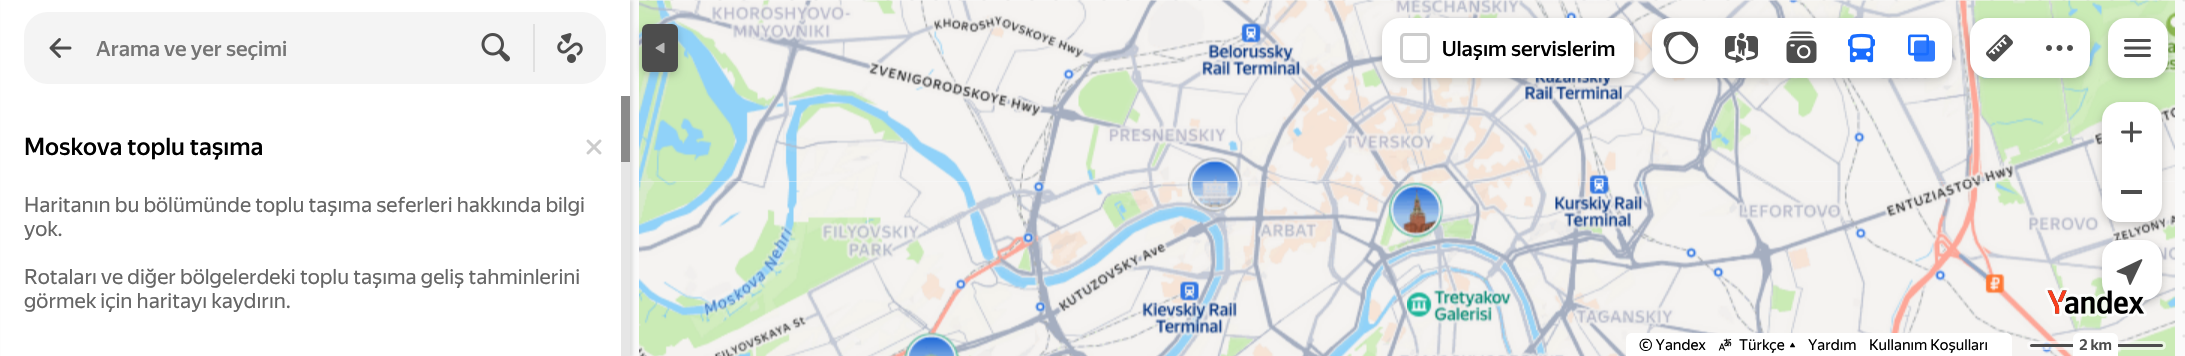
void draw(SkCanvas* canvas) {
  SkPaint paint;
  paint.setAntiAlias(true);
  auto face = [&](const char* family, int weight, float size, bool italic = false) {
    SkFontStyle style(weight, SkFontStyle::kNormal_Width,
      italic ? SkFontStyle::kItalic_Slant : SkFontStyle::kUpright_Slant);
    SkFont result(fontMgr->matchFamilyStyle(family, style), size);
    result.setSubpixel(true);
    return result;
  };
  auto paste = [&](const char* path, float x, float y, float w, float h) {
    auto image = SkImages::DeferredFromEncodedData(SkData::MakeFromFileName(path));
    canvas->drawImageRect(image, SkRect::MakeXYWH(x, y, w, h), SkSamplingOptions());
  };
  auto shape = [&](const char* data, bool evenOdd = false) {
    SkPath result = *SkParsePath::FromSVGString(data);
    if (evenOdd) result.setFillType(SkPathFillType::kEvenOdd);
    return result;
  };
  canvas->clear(0xffffffff);
  paste("img/1.png", 630, 0, 1555, 356);
  paste("img/2.png", 639, 0, 384, 182);
  paste("img/3.png", 1023, 0, 384, 182);
  paste("img/4.png", 1407, 0, 384, 182);
  paste("img/5.png", 1791, 0, 384, 182);
  paste("img/6.png", 639, 181, 384, 175);
  paste("img/7.png", 1023, 181, 384, 175);
  paste("img/8.png", 1407, 181, 384, 175);
  paste("img/9.png", 1791, 181, 384, 175);
  paint.setColor(0x1a000000);
  paint.setMaskFilter(SkMaskFilter::MakeBlur(kNormal_SkBlurStyle, 1.5f));
  canvas->drawRect(SkRect::MakeXYWH(3, 0, 630, 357), paint);
  paint.setMaskFilter(nullptr);
  paint.setColor(0x33000000);
  paint.setMaskFilter(SkMaskFilter::MakeBlur(kNormal_SkBlurStyle, 4.5f));
  canvas->drawRoundRect(SkRect::MakeXYWH(642, 27, 36, 48), 6, 6, paint);
  paint.setMaskFilter(nullptr);
  paint.setColor(0xffffffff);
  canvas->drawRect(SkRect::MakeXYWH(1, 0, 629, 356), paint);
  paint.setColor(0xfff4f4f4);
  canvas->drawRoundRect(SkRect::MakeXYWH(24, 12, 582, 72), 24, 24, paint);
  paste("img/10.png", 49, 38, 23, 20);
  paste("img/11.png", 481, 33, 29, 29);
  paint.setColor(0xffe0e0e0);
  canvas->drawRect(SkRect::MakeXYWH(533, 24, 2, 48), paint);
  paste("img/12.png", 557, 33, 26, 30);
  paint.setColor(0x33000000);
  paint.setMaskFilter(SkMaskFilter::MakeBlur(kNormal_SkBlurStyle, 4.5f));
  canvas->drawRoundRect(SkRect::MakeXYWH(1382, 21, 252, 60), 18, 18, paint);
  paint.setMaskFilter(nullptr);
  paint.setColor(0xffffffff);
  canvas->drawRoundRect(SkRect::MakeXYWH(1382, 18, 252, 60), 18, 18, paint);
  paint.setStroke(true);
  paint.setStrokeWidth(3);
  paint.setColor(0xffcccccc);
  canvas->drawRoundRect(SkRect::MakeXYWH(1401.5f, 34.5f, 27, 27), 3.5f, 3.5f, paint);
  paint.setStroke(false);
  paint.setColor(0x33000000);
  paint.setMaskFilter(SkMaskFilter::MakeBlur(kNormal_SkBlurStyle, 4.5f));
  canvas->drawRoundRect(SkRect::MakeXYWH(1652, 21, 300, 60), 18, 18, paint);
  paint.setMaskFilter(nullptr);
  paint.setColor(0xffffffff);
  canvas->drawPath(shape("M1670 18H1712V78H1670C1660 78 1652 70 1652 60V36C1652 26 1660 18 1670 18Z"), paint);
  paste("img/13.png", 1663, 31, 36, 34);
  canvas->drawRect(SkRect::MakeXYWH(1712, 18, 180, 60), paint);
  paste("img/14.png", 1725, 33, 33, 30);
  canvas->drawPath(shape("M1892 18H1934C1944 18 1952 26 1952 36V60C1952 70 1944 78 1934 78H1892Z"), paint);
  paste("img/15.png", 1908, 34, 27, 28);
  paste("img/16.png", 1786, 31, 31, 32);
  paste("img/17.png", 1848, 33, 27, 30);
  paint.setColor(0x33000000);
  paint.setMaskFilter(SkMaskFilter::MakeBlur(kNormal_SkBlurStyle, 4.5f));
  canvas->drawRoundRect(SkRect::MakeXYWH(1970, 21, 120, 60), 18, 18, paint);
  paint.setMaskFilter(nullptr);
  paint.setColor(0xffffffff);
  canvas->drawPath(shape("M1988 18H2030V78H1988C1978 78 1970 70 1970 60V36C1970 26 1978 18 1988 18Z"), paint);
  paste("img/18.png", 1986, 34, 27, 28);
  canvas->drawPath(shape("M2030 18H2072C2082 18 2090 26 2090 36V60C2090 70 2082 78 2072 78H2030Z"), paint);
  paste("img/19.png", 2046, 45, 27, 6);
  paint.setColor(0x33000000);
  paint.setMaskFilter(SkMaskFilter::MakeBlur(kNormal_SkBlurStyle, 4.5f));
  canvas->drawRoundRect(SkRect::MakeXYWH(2108, 21, 60, 60), 18, 18, paint);
  paint.setMaskFilter(nullptr);
  paint.setColor(0xffffffff);
  canvas->drawRoundRect(SkRect::MakeXYWH(2108, 18, 60, 60), 18, 18, paint);
  paste("img/20.png", 2124, 39, 27, 18);
  paint.setColor(0x33000000);
  paint.setMaskFilter(SkMaskFilter::MakeBlur(kNormal_SkBlurStyle, 4.5f));
  canvas->drawRoundRect(SkRect::MakeXYWH(2102, 105, 60, 120), 18, 18, paint);
  paint.setMaskFilter(nullptr);
  paint.setColor(0xffffffff);
  canvas->drawPath(shape("M2120 102H2144C2154 102 2162 110 2162 120V162H2102V120C2102 110 2110 102 2120 102Z"), paint);
  paste("img/21.png", 2121, 121, 21, 22);
  canvas->drawPath(shape("M2102 162H2162V204C2162 214 2154 222 2144 222H2120C2110 222 2102 214 2102 204Z"), paint);
  paint.setColor(0xff4d4d4d);
  canvas->drawRect(SkRect::MakeXYWH(2121, 190, 21, 4), paint);
  paint.setColor(0x33000000);
  paint.setMaskFilter(SkMaskFilter::MakeBlur(kNormal_SkBlurStyle, 4.5f));
  canvas->drawRoundRect(SkRect::MakeXYWH(2102, 243, 60, 60), 18, 18, paint);
  paint.setMaskFilter(nullptr);
  paint.setColor(0xffffffff);
  canvas->drawRoundRect(SkRect::MakeXYWH(2102, 240, 60, 60), 18, 18, paint);
  paste("img/22.png", 2116, 259, 27, 26);
  paint.setColor(0xff4d4d4d);
  canvas->drawRoundRect(SkRect::MakeXYWH(642, 24, 36, 48), 6, 6, paint);
  paste("img/23.png", 655, 42, 10, 12);
  paste("img/24.png", 586, 139, 16, 16);
  paint.setColor(0xff8a8a8a);
  canvas->drawRect(SkRect::MakeXYWH(621, 96, 9, 66), paint);
  paint.setColor(0xffe6e6e6);
  canvas->drawRect(SkRect::MakeXYWH(621, 162, 9, 194), paint);
  paste("img/25.png", 2044, 287, 103, 30);
  paint.setColor(0xffffffff);
  canvas->drawPath(shape("M1632 333H2006C2009.5 333 2012 335.5 2012 339V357H1626V339C1626 335.5 1628.5 333 1632 333Z"), paint);
  paste("img/26.png", 1718, 338, 14, 13);
  paste("img/27.png", 1790, 342, 6, 6);
  paint.setColor(0x99ffffff);
  canvas->drawRoundRect(SkRect::MakeXYWH(2027, 341, 139, 9), 4.5f, 4.5f, paint);
  paint.setColor(0xff4d4d4d);
  canvas->drawRoundRect(SkRect::MakeXYWH(2030, 344, 133, 3), 1.5f, 1.5f, paint);
  paint.setColor(0xffffffff);
  canvas->drawPath(shape("M2079 333H2112C2115.5 333 2118 335.5 2118 339V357H2073V339C2073 335.5 2075.5 333 2079 333Z"), paint);
  auto f0 = face("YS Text", 500, 21);
  paint.setColor(0xff757575);
  canvas->drawString("Arama ve yer seçimi", 96, 56, f0, paint);
  paint.setColor(0xff000000);
  canvas->drawString("Ulaşım servislerim", 1442, 56, f0, paint);
  auto f1 = face("YS Text", 500, 24);
  canvas->drawString("Moskova toplu taşıma", 24, 155, f1, paint);
  auto f2 = face("YS Text", 400, 21);
  paint.setColor(0xff666666);
  {
    const struct { const char* s; float x, y; } items[] = {
      {"Haritanın bu bölümünde toplu taşıma seferleri hakkında bilgi", 24, 212},
      {"yok.", 24, 236},
      {"Rotaları ve diğer bölgelerdeki toplu taşıma geliş tahminlerini", 24, 284},
      {"görmek için haritayı kaydırın.", 24, 308},
    };
    for (auto [s, x, y] : items) {
      canvas->drawString(s, x, y, f2, paint);
    }
  }
  auto f3 = face("YS Text", 400, 15);
  paint.setColor(0xff000000);
  {
    const struct { const char* s; float x, y; } items[] = {
      {"© Yandex", 1639, 350},
      {"Türkçe", 1739, 350},
      {"Yardım", 1808, 350},
      {"Kullanım Koşulları", 1869, 350},
    };
    for (auto [s, x, y] : items) {
      canvas->drawString(s, x, y, f3, paint);
    }
  }
  auto f4 = face("YS Text", 700, 15);
  paint.setColor(0xff4d4d4d);
  canvas->drawString("2 km", 2079, 350, f4, paint);
}
